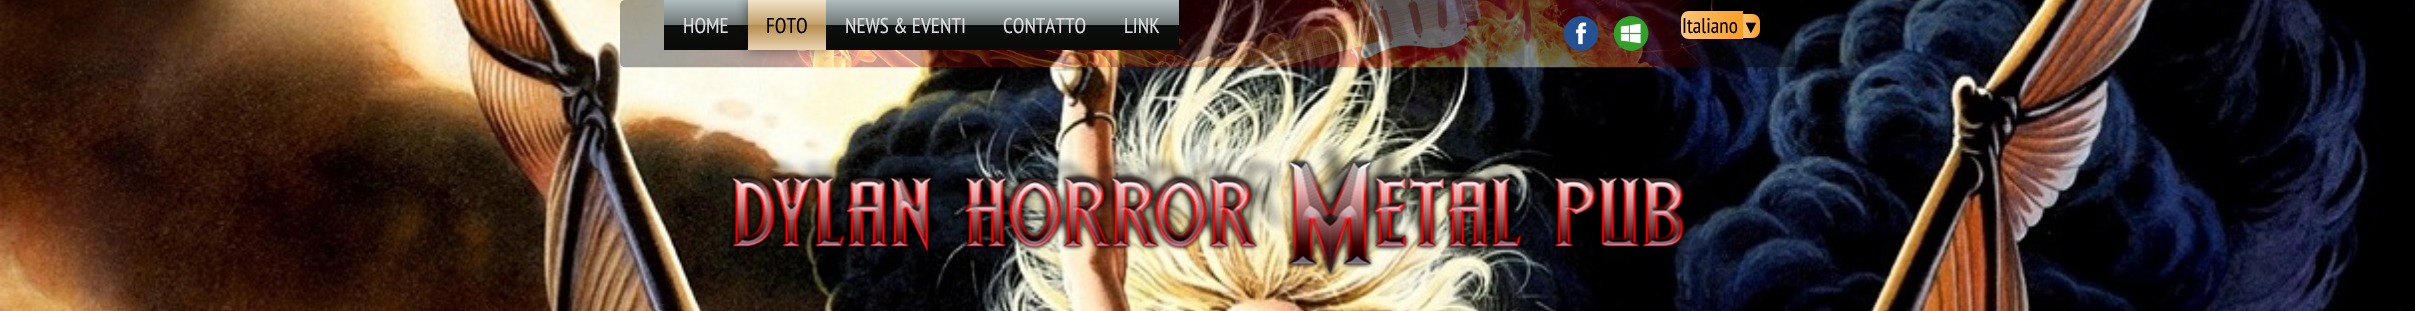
void draw(SkCanvas* canvas) {
  SkPaint paint;
  paint.setAntiAlias(true);
  auto face = [&](const char* family, int weight, float size, bool italic = false) {
    SkFontStyle style(weight, SkFontStyle::kNormal_Width,
      italic ? SkFontStyle::kItalic_Slant : SkFontStyle::kUpright_Slant);
    SkFont result(fontMgr->matchFamilyStyle(family, style), size);
    result.setSubpixel(true);
    return result;
  };
  auto paste = [&](const char* path, float x, float y, float w, float h) {
    auto image = SkImages::DeferredFromEncodedData(SkData::MakeFromFileName(path));
    canvas->drawImageRect(image, SkRect::MakeXYWH(x, y, w, h), SkSamplingOptions());
  };
  auto shape = [&](const char* data, bool evenOdd = false) {
    SkPath result = *SkParsePath::FromSVGString(data);
    if (evenOdd) result.setFillType(SkPathFillType::kEvenOdd);
    return result;
  };
  canvas->clear(0xffffffff);
  paste("img/1.png", 0, 0, 2415, 311);
  paste("img/2.png", 620, 0, 1175, 68);
  {
    const SkColor colors[] = {0xffafbdc0, 0xff6e7774, 0xff0b0f0b, 0xff0b090a};
    const float stops[] = {0, 0.5f, 0.51f, 1};
    const SkPoint ends[] = {{706, 0}, {706, 50}};
    paint.setShader(SkGradientShader::MakeLinear(ends, colors, stops, 4, SkTileMode::kClamp));
    paint.setAlpha(255);
  }
  canvas->drawRect(SkRect::MakeXYWH(664, 0, 84, 50), paint);
  paint.setShader(nullptr);
  paint.setColor(0x80000000);
  paint.setMaskFilter(SkMaskFilter::MakeBlur(kNormal_SkBlurStyle, 6));
  canvas->drawRect(SkRect::MakeXYWH(748, 0, 78, 50), paint);
  paint.setMaskFilter(nullptr);
  {
    const SkColor colors[] = {0xfff3e3c8, 0xffc19e67, 0xffb78e4e, 0xffe9d5b4};
    const float stops[] = {0, 0.5f, 0.51f, 1};
    const SkPoint ends[] = {{787, 0}, {787, 50}};
    paint.setShader(SkGradientShader::MakeLinear(ends, colors, stops, 4, SkTileMode::kClamp));
    paint.setAlpha(255);
  }
  canvas->drawRect(SkRect::MakeXYWH(748, 0, 78, 50), paint);
  {
    const SkColor colors[] = {0xffafbdc0, 0xff6e7774, 0xff0b0f0b, 0xff0b090a};
    const float stops[] = {0, 0.5f, 0.51f, 1};
    const SkPoint ends[] = {{906, 0}, {906, 50}};
    paint.setShader(SkGradientShader::MakeLinear(ends, colors, stops, 4, SkTileMode::kClamp));
    paint.setAlpha(255);
  }
  canvas->drawRect(SkRect::MakeXYWH(826, 0, 159, 50), paint);
  {
    const SkColor colors[] = {0xffafbdc0, 0xff6e7774, 0xff0b0f0b, 0xff0b090a};
    const float stops[] = {0, 0.5f, 0.51f, 1};
    const SkPoint ends[] = {{1045, 0}, {1045, 50}};
    paint.setShader(SkGradientShader::MakeLinear(ends, colors, stops, 4, SkTileMode::kClamp));
    paint.setAlpha(255);
  }
  canvas->drawRect(SkRect::MakeXYWH(985, 0, 120, 50), paint);
  {
    const SkColor colors[] = {0xffafbdc0, 0xff6e7774, 0xff0b0f0b, 0xff0b090a};
    const float stops[] = {0, 0.5f, 0.51f, 1};
    const SkPoint ends[] = {{1142, 0}, {1142, 50}};
    paint.setShader(SkGradientShader::MakeLinear(ends, colors, stops, 4, SkTileMode::kClamp));
    paint.setAlpha(255);
  }
  canvas->drawRect(SkRect::MakeXYWH(1105, 0, 74, 50), paint);
  paste("img/3.png", 1563, 15, 36, 36);
  paste("img/4.png", 1613, 15, 36, 36);
  {
    const SkColor colors[] = {0xffffc67a, 0xfffb9d23};
    const float stops[] = {0, 1};
    const SkPoint ends[] = {{1681, 25}, {1743, 25}};
    paint.setShader(SkGradientShader::MakeLinear(ends, colors, stops, 2, SkTileMode::kClamp));
    paint.setAlpha(255);
  }
  canvas->drawPath(shape("M1689 11H1743V39H1689C1684.5 39 1681 35.5 1681 31V19C1681 14.5 1684.5 11 1689 11Z"), paint);
  {
    const SkColor colors[] = {0xffffc67a, 0xfffb9d23};
    const float stops[] = {0, 1};
    const SkPoint ends[] = {{1743, 26}, {1760, 26}};
    paint.setShader(SkGradientShader::MakeLinear(ends, colors, stops, 2, SkTileMode::kClamp));
    paint.setAlpha(255);
  }
  canvas->drawPath(shape("M1743 14H1752C1756.5 14 1760 17.5 1760 22V30C1760 34.5 1756.5 38 1752 38H1743Z"), paint);
  paste("img/5.png", 730, 141, 985, 135);
  auto f0 = face("PT Sans Narrow", 400, 21.25f);
  paint.setShader(nullptr);
  paint.setColor(0xffdedede);
  canvas->drawString("HOME", 683, 33, f0, paint);
  paint.setColor(0xff000000);
  canvas->drawString("FOTO", 766, 33, f0, paint);
  paint.setColor(0xffdedede);
  {
    const struct { const char* s; float x, y; } items[] = {
      {"NEWS & EVENTI", 845, 33},
      {"CONTATTO", 1003, 33},
      {"LINK", 1124, 33},
    };
    for (auto [s, x, y] : items) {
      canvas->drawString(s, x, y, f0, paint);
    }
  }
  paint.setColor(0xff000000);
  canvas->drawString("Italiano", 1682, 33, f0, paint);
  auto f1 = face("Liberation Serif", 400, 18);
  canvas->drawString("▼", 1742, 33, f1, paint);
}
